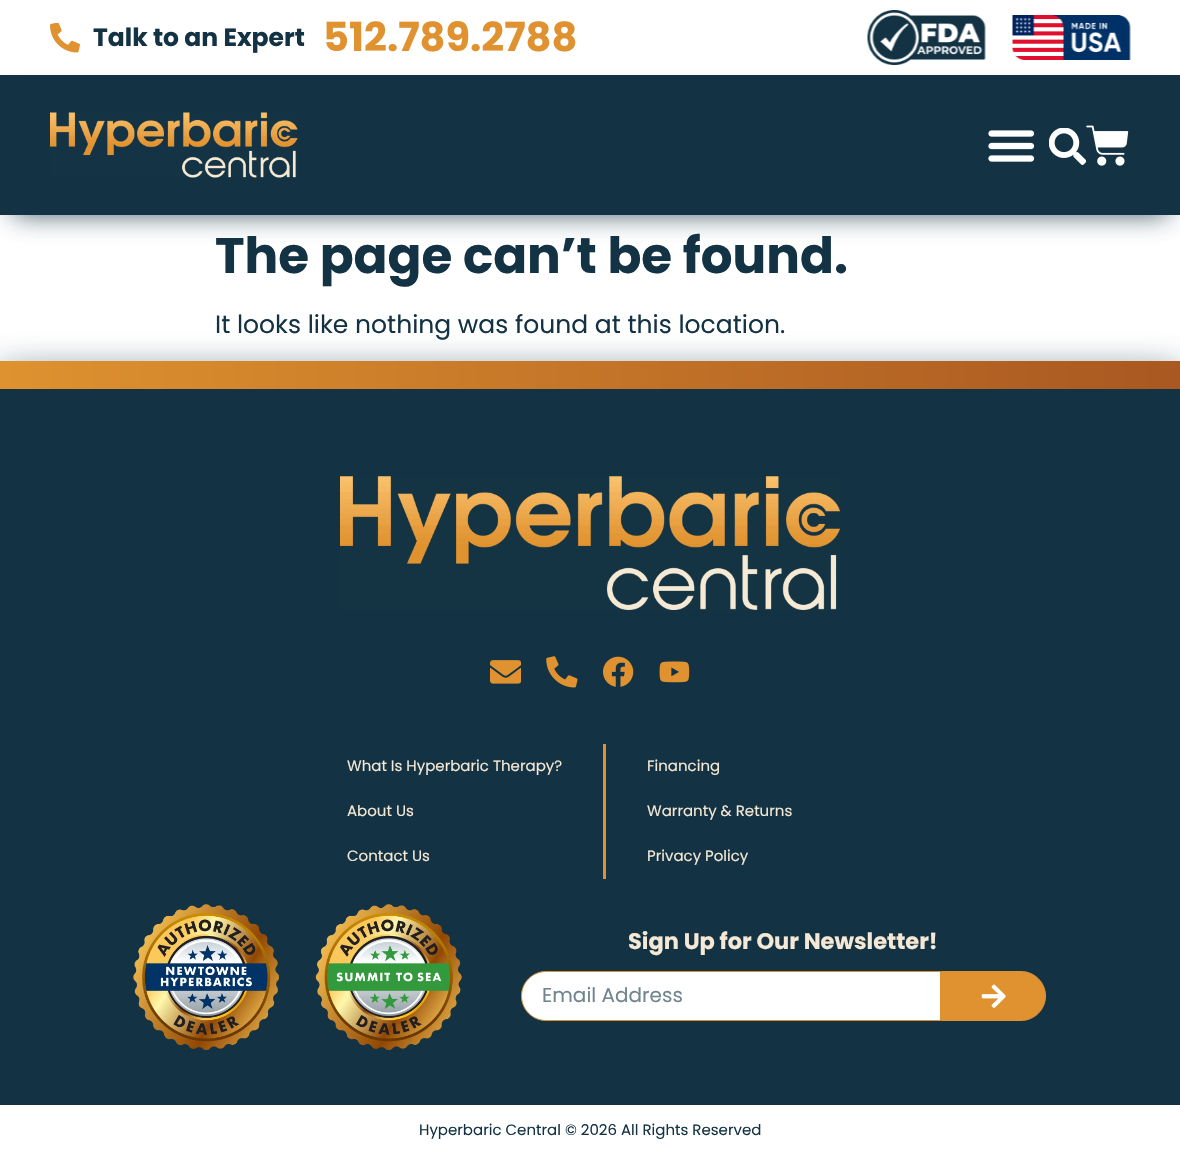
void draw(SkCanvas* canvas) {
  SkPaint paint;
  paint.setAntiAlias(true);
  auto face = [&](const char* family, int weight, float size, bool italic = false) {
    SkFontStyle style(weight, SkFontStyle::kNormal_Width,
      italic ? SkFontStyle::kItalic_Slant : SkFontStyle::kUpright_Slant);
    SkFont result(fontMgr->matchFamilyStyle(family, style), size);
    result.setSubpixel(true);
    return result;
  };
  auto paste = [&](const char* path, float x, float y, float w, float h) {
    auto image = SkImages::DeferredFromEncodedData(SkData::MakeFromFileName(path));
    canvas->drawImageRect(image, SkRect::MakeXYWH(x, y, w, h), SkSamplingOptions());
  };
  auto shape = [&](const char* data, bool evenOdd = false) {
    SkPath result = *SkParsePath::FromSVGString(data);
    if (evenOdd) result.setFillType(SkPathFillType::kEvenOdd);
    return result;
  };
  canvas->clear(0xffffffff);
  paste("img/1.png", 50, 23, 30, 30);
  paste("img/2.png", 867, 10, 119, 55);
  paste("img/3.png", 1012, 15, 119, 45);
  paint.setColor(0xc7133344);
  paint.setMaskFilter(SkMaskFilter::MakeBlur(kNormal_SkBlurStyle, 12.5f));
  canvas->drawRect(SkRect::MakeXYWH(13, 100, 1155, 115), paint);
  paint.setMaskFilter(nullptr);
  paint.setColor(0xff133344);
  canvas->drawRect(SkRect::MakeXYWH(0, 75, 1180, 140), paint);
  paste("img/4.png", 50, 112, 248, 66);
  paste("img/5.png", 988, 130, 47, 32);
  paste("img/6.png", 1049, 128, 37, 37);
  paste("img/7.png", 1086, 125, 43, 41);
  paint.setColor(0xc7133344);
  paint.setMaskFilter(SkMaskFilter::MakeBlur(kNormal_SkBlurStyle, 19));
  canvas->drawRect(SkRect::MakeXYWH(0, 374, 1180, 27), paint);
  paint.setMaskFilter(nullptr);
  {
    const SkColor colors[] = {0xffdf922f, 0xffa95821};
    const float stops[] = {0, 1};
    const SkPoint ends[] = {{0, 375}, {1180, 375}};
    paint.setShader(SkGradientShader::MakeLinear(ends, colors, stops, 2, SkTileMode::kClamp));
    paint.setAlpha(255);
  }
  canvas->drawRect(SkRect::MakeXYWH(0, 361, 1180, 28), paint);
  paint.setShader(nullptr);
  paint.setColor(0xff133344);
  canvas->drawRect(SkRect::MakeXYWH(0, 389, 1180, 716), paint);
  paste("img/8.png", 340, 476, 500, 134);
  paste("img/9.png", 490, 660, 31, 24);
  paste("img/10.png", 546, 656, 32, 32);
  paste("img/11.png", 603, 656, 31, 31);
  paste("img/12.png", 659, 661, 31, 22);
  paint.setColor(0xffdf922f);
  canvas->drawRect(SkRect::MakeXYWH(603, 744, 3, 135), paint);
  paste("img/13.png", 133, 904, 146, 146);
  paste("img/14.png", 315, 904, 147, 146);
  paint.setColor(0xffffffff);
  canvas->drawPath(shape("M546 971.5H940.5V1020.5H546C532.5 1020.5 521.5 1009.5 521.5 996C521.5 982.5 532.5 971.5 546 971.5Z"), paint);
  paint.setStroke(true);
  paint.setStrokeWidth(1);
  paint.setColor(0xffdf922f);
  canvas->drawPath(shape("M546 971.5H940.5V1020.5H546C532.5 1020.5 521.5 1009.5 521.5 996C521.5 982.5 532.5 971.5 546 971.5Z"), paint);
  paint.setStroke(false);
  canvas->drawPath(shape("M941.5 971.5H1021C1034.5 971.5 1045.5 982.5 1045.5 996C1045.5 1009.5 1034.5 1020.5 1021 1020.5H941.5Z"), paint);
  paint.setStroke(true);
  canvas->drawPath(shape("M941.5 971.5H1021C1034.5 971.5 1045.5 982.5 1045.5 996C1045.5 1009.5 1034.5 1020.5 1021 1020.5H941.5Z"), paint);
  paste("img/15.png", 981, 984, 25, 24);
  auto f0 = face("Poppins", 700, 25);
  paint.setStroke(false);
  paint.setColor(0xff133344);
  canvas->drawString("Talk to an Expert", 93, 46, f0, paint);
  auto f1 = face("Poppins", 700, 40);
  paint.setColor(0xffdf922f);
  canvas->drawString("512.789.2788", 323, 51, f1, paint);
  auto f2 = face("Poppins", 700, 50);
  paint.setColor(0xff133344);
  canvas->drawString("The page can’t be found.", 215, 273, f2, paint);
  auto f3 = face("Poppins", 400, 25);
  canvas->drawString("It looks like nothing was found at this location.", 215, 333, f3, paint);
  auto f4 = face("Poppins", 400, 15);
  paint.setColor(0xfff5e8d4);
  {
    const struct { const char* s; float x, y; } items[] = {
      {"What Is Hyperbaric Therapy?", 347, 771},
      {"About Us", 347, 816},
      {"Contact Us", 347, 861},
      {"Financing", 647, 771},
      {"Warranty & Returns", 647, 816},
      {"Privacy Policy", 647, 861},
    };
    for (auto [s, x, y] : items) {
      canvas->drawString(s, x, y, f4, paint);
    }
  }
  auto f5 = face("Poppins", 700, 22.5f);
  canvas->drawString("Sign Up for Our Newsletter!", 628, 949, f5, paint);
  auto f6 = face("Poppins", 400, 20);
  paint.setColor(0xff71858f);
  canvas->drawString("Email Address", 542, 1002, f6, paint);
  paint.setColor(0xff133344);
  canvas->drawString("Hyperbaric Central © 2026 All Rights Reserved", 419, 1135, f4, paint);
}
